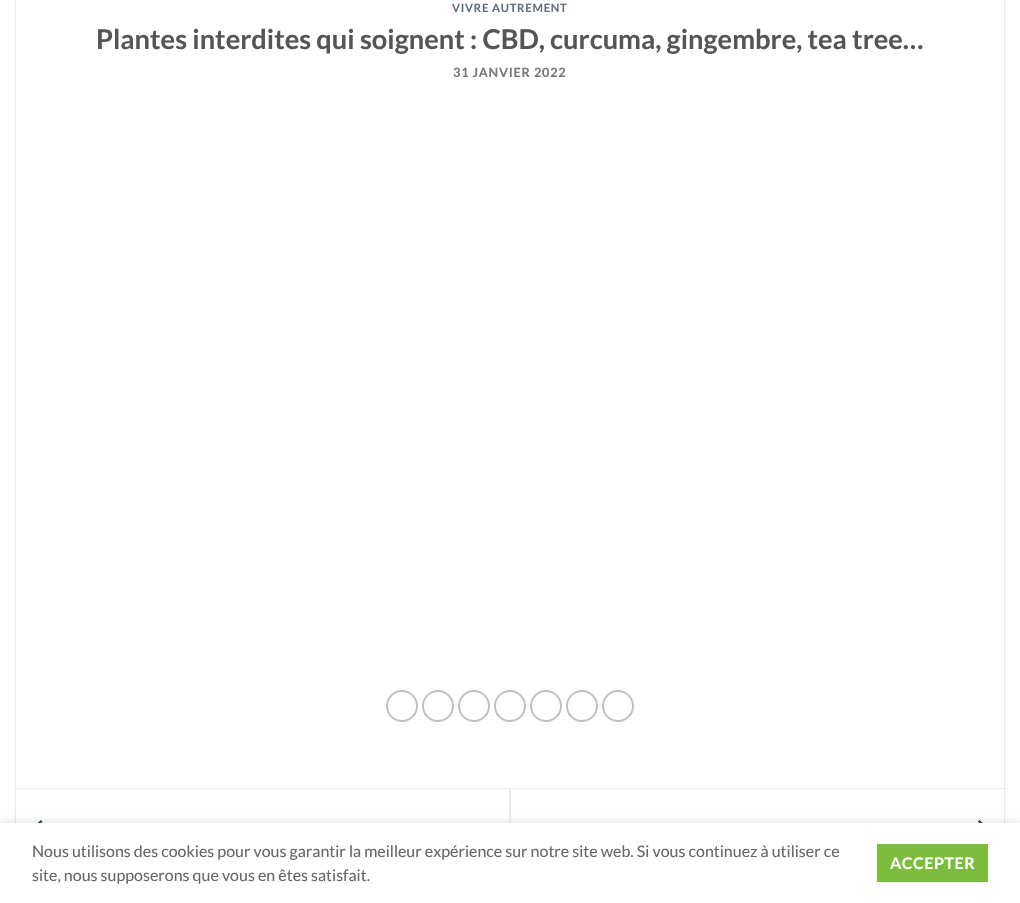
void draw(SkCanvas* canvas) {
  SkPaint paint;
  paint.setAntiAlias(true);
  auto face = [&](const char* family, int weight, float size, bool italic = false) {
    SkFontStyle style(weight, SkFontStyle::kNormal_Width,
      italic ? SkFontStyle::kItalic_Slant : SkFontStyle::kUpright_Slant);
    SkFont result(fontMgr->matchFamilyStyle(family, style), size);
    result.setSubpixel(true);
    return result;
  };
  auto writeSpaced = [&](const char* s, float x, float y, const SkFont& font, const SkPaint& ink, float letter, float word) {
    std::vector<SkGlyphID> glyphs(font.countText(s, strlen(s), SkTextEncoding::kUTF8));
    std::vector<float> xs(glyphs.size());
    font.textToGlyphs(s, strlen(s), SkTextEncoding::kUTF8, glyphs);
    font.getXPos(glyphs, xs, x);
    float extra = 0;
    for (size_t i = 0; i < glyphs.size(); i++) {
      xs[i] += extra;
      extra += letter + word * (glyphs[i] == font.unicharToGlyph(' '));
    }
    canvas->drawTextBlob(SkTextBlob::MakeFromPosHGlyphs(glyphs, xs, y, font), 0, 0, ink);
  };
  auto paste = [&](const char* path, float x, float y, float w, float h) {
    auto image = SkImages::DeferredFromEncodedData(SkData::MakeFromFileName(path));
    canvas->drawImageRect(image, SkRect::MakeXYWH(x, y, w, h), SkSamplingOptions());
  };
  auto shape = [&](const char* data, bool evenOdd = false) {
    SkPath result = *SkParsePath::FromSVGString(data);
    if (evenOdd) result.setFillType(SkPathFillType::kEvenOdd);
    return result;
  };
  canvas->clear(0xffffffff);
  canvas->save();
  canvas->clipPath(shape("M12 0H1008V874H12ZM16-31H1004V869H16Z", true), true);
  paint.setColor(0x3d000000);
  paint.setMaskFilter(SkMaskFilter::MakeBlur(kNormal_SkBlurStyle, 1));
  canvas->drawRect(SkRect::MakeXYWH(16, -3, 988, 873), paint);
  paint.setMaskFilter(nullptr);
  canvas->restore();
  paint.setStroke(true);
  paint.setStrokeWidth(2);
  paint.setColor(0xffc0c0c0);
  canvas->drawCircle(402, 706, 15, paint);
  canvas->drawCircle(438, 706, 15, paint);
  canvas->drawCircle(474, 706, 15, paint);
  canvas->drawCircle(510, 706, 15, paint);
  canvas->drawCircle(546, 706, 15, paint);
  canvas->drawCircle(582, 706, 15, paint);
  canvas->drawCircle(618, 706, 15, paint);
  paint.setStroke(false);
  paint.setColor(0xffececec);
  canvas->drawRect(SkRect::MakeXYWH(16, 788, 988, 1), paint);
  canvas->drawRect(SkRect::MakeXYWH(509, 789, 2, 34), paint);
  paste("img/1.png", 37, 820, 6, 3);
  paste("img/2.png", 978, 820, 5, 3);
  paint.setColor(0x24000000);
  paint.setMaskFilter(SkMaskFilter::MakeBlur(kNormal_SkBlurStyle, 4.5f));
  canvas->drawRect(SkRect::MakeXYWH(0, 823, 1020, 80), paint);
  paint.setMaskFilter(nullptr);
  paint.setColor(0xffffffff);
  canvas->drawRect(SkRect::MakeXYWH(0, 823, 1020, 80), paint);
  paint.setColor(0xff7cbc3d);
  canvas->drawRect(SkRect::MakeXYWH(877, 844, 111, 38), paint);
  auto f0 = face("Lato", 700, 11.25f);
  paint.setColor(0xff5c6d81);
  writeSpaced("VIVRE AUTREMENT", 452, 12, f0, paint, 0.75f, 0);
  auto f1 = face("Lato", 700, 27.2f);
  paint.setColor(0xff555555);
  canvas->drawString("Plantes interdites qui soignent : CBD, curcuma, gingembre, tea tree…", 96, 49, f1, paint);
  auto f2 = face("Lato", 700, 12.75f);
  paint.setColor(0xff777777);
  writeSpaced("31 JANVIER 2022", 453, 77, f2, paint, 0.75f, 0);
  auto f3 = face("Lato", 400, 16);
  paint.setColor(0xff666666);
  canvas->drawString("Nous utilisons des cookies pour vous garantir la meilleur expérience sur notre site web. Si vous continuez à utiliser ce", 32, 857, f3, paint);
  canvas->drawString("site, nous supposerons que vous en êtes satisfait.", 32, 881, f3, paint);
  auto f4 = face("Lato", 700, 16);
  paint.setColor(0xffffffff);
  writeSpaced("ACCEPTER", 890, 869, f4, paint, 0.5f, 0);
}
